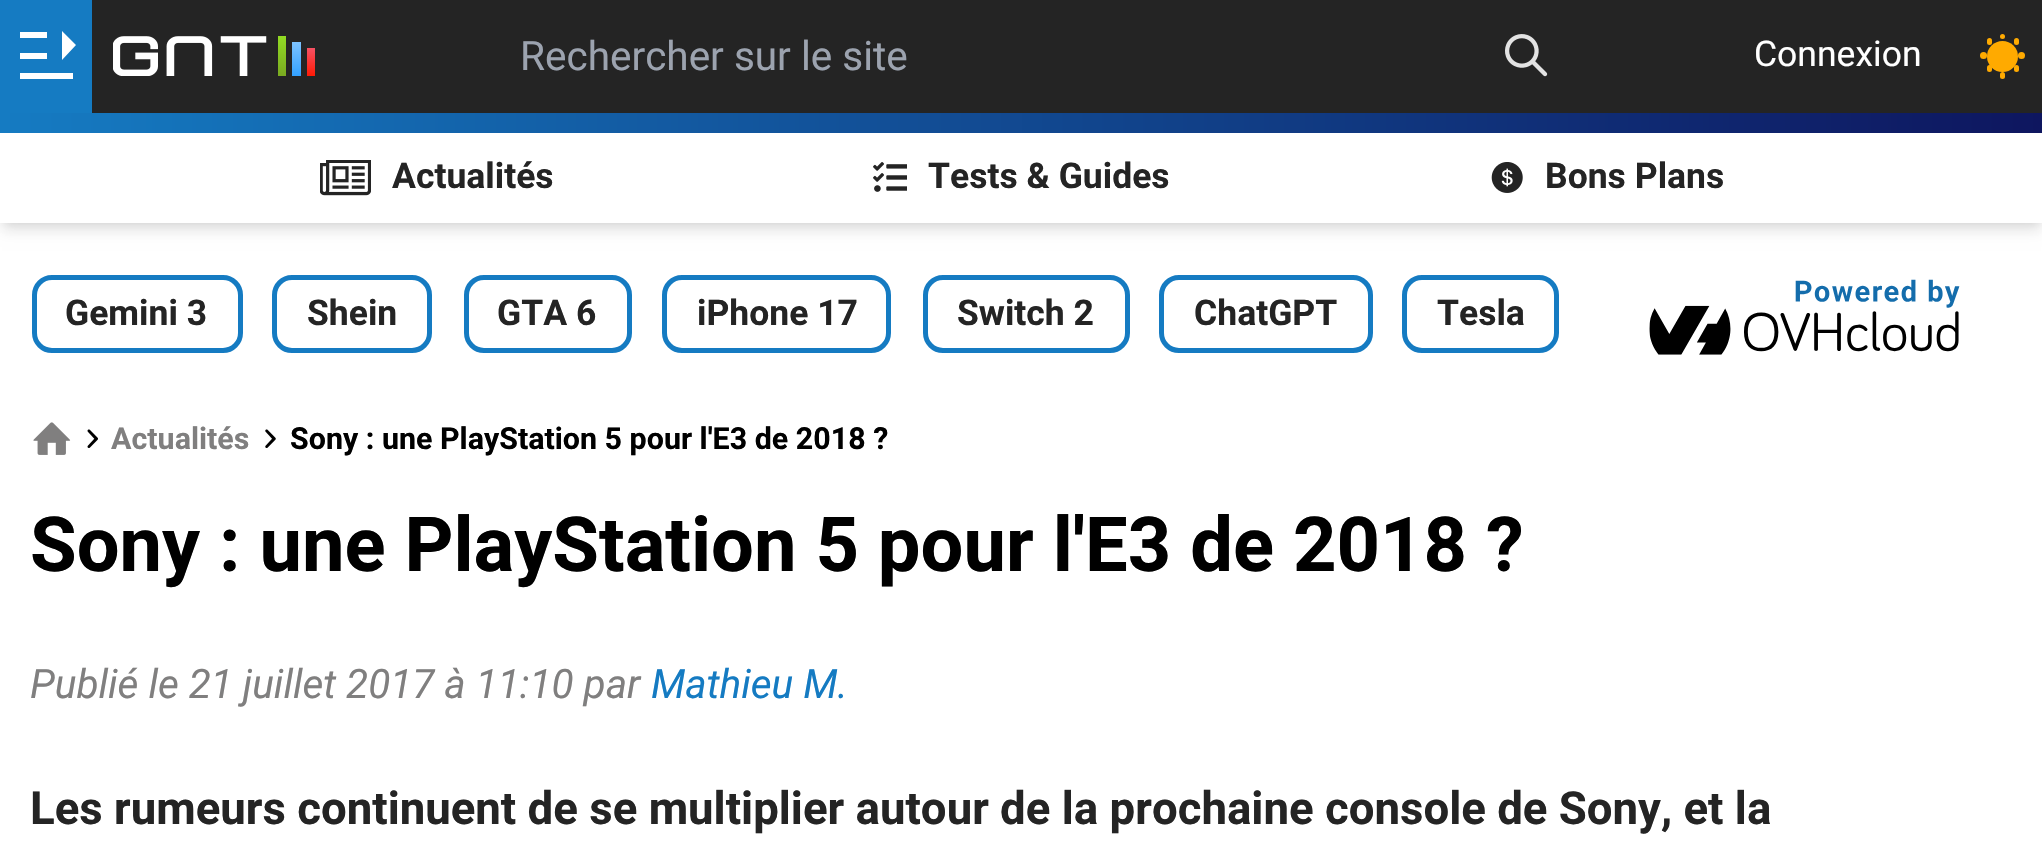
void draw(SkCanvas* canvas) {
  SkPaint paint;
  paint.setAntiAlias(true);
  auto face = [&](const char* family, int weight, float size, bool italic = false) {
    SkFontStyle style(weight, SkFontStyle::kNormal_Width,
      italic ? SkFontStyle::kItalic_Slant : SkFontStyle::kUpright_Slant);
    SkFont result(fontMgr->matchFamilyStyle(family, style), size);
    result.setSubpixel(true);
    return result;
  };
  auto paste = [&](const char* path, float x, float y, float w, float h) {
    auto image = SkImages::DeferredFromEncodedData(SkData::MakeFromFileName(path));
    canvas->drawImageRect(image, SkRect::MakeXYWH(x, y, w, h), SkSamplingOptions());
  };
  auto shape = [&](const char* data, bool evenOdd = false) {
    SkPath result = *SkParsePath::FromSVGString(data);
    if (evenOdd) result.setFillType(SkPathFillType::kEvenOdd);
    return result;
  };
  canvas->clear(0xffffffff);
  paint.setColor(0x1a000000);
  paint.setMaskFilter(SkMaskFilter::MakeBlur(kNormal_SkBlurStyle, 4.5f));
  canvas->drawRect(SkRect::MakeXYWH(5, 9, 2034, 214), paint);
  paint.setMaskFilter(nullptr);
  paint.setMaskFilter(SkMaskFilter::MakeBlur(kNormal_SkBlurStyle, 7));
  canvas->drawRect(SkRect::MakeXYWH(2, 11, 2039, 219), paint);
  paint.setMaskFilter(nullptr);
  paint.setColor(0xff242424);
  canvas->drawRect(SkRect::MakeXYWH(92, 0, 1950, 113), paint);
  paint.setColor(0xff157bc2);
  canvas->drawRect(SkRect::MakeXYWH(0, 0, 92, 113), paint);
  paint.setColor(0xffffffff);
  canvas->drawPath(shape("M20 73V79H73V73ZM62 31V60L76 45ZM20 53V59H47V53ZM20 32V38H47V32Z"), paint);
  paste("img/1.png", 113, 36, 202, 40);
  paste("img/2.png", 1505, 34, 43, 43);
  paint.setColor(0xffffaa00);
  canvas->drawRoundRect(SkRect::MakeXYWH(2014, 38, 5, 7), 2.5f, 2.5f, paint);
  canvas->drawRoundRect(SkRect::MakeXYWH(1987, 65, 5, 7), 2.5f, 2.5f, paint);
  canvas->drawRoundRect(SkRect::MakeXYWH(2014, 65, 5, 7), 2.5f, 2.5f, paint);
  canvas->drawRoundRect(SkRect::MakeXYWH(1987, 38, 5, 7), 2.5f, 2.5f, paint);
  canvas->drawRoundRect(SkRect::MakeXYWH(2000, 72, 5, 7), 2.5f, 2.5f, paint);
  canvas->drawCircle(2002.5f, 36.5f, 2.5f, paint);
  canvas->drawCircle(2021.5f, 55.5f, 3.5f, paint);
  canvas->drawCircle(1983.5f, 55.5f, 3.5f, paint);
  canvas->drawCircle(2002.5f, 56.5f, 15.5f, paint);
  {
    const SkColor colors[] = {0xff157bc2, 0xff0e165f};
    const float stops[] = {0, 1};
    const SkPoint ends[] = {{0, 123}, {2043, 123}};
    paint.setShader(SkGradientShader::MakeLinear(ends, colors, stops, 2, SkTileMode::kClamp));
    paint.setAlpha(255);
  }
  canvas->drawRect(SkRect::MakeXYWH(0, 113, 2042, 20), paint);
  paint.setShader(nullptr);
  paint.setColor(0xffffffff);
  canvas->drawRect(SkRect::MakeXYWH(0, 133, 2042, 90), paint);
  paste("img/3.png", 320, 160, 51, 36);
  paste("img/4.png", 873, 162, 34, 30);
  paste("img/5.png", 1491, 162, 32, 31);
  paint.setStroke(true);
  paint.setStrokeWidth(5);
  paint.setColor(0xff157bc2);
  canvas->drawRoundRect(SkRect::MakeXYWH(34.5f, 277.5f, 206, 73), 17.5f, 17.5f, paint);
  canvas->drawRoundRect(SkRect::MakeXYWH(274.5f, 277.5f, 155, 73), 17.5f, 17.5f, paint);
  canvas->drawRoundRect(SkRect::MakeXYWH(466.5f, 277.5f, 163, 73), 17.5f, 17.5f, paint);
  canvas->drawRoundRect(SkRect::MakeXYWH(664.5f, 277.5f, 224, 73), 17.5f, 17.5f, paint);
  canvas->drawRoundRect(SkRect::MakeXYWH(925.5f, 277.5f, 202, 73), 17.5f, 17.5f, paint);
  canvas->drawRoundRect(SkRect::MakeXYWH(1161.5f, 277.5f, 209, 73), 17.5f, 17.5f, paint);
  canvas->drawRoundRect(SkRect::MakeXYWH(1404.5f, 277.5f, 152, 73), 17.5f, 17.5f, paint);
  paste("img/6.png", 1649, 279, 311, 76);
  paste("img/7.png", 33, 422, 38, 33);
  paste("img/8.png", 87, 429, 11, 19);
  paste("img/9.png", 265, 429, 11, 19);
  auto f0 = face("Roboto", 400, 40.5f);
  paint.setStroke(false);
  paint.setColor(0xff9ca3af);
  canvas->drawString("Rechercher sur le site", 520, 70, f0, paint);
  auto f1 = face("Roboto", 400, 35.5f);
  paint.setColor(0xffffffff);
  canvas->drawString("Connexion", 1754, 66, f1, paint);
  auto f2 = face("Roboto", 700, 35.5f);
  paint.setColor(0xff242424);
  {
    const struct { const char* s; float x, y; } items[] = {
      {"Actualités", 392, 188},
      {"Tests & Guides", 928, 188},
      {"Bons Plans", 1545, 188},
      {"Gemini 3", 65, 325},
      {"Shein", 307, 325},
      {"GTA 6", 497, 325},
      {"iPhone 17", 697, 325},
      {"Switch 2", 957, 325},
      {"ChatGPT", 1194, 325},
      {"Tesla", 1437, 325},
    };
    for (auto [s, x, y] : items) {
      canvas->drawString(s, x, y, f2, paint);
    }
  }
  auto f3 = face("Roboto", 700, 30.4f);
  paint.setColor(0xff807f7f);
  canvas->drawString("Actualités", 111, 449, f3, paint);
  paint.setColor(0xff000000);
  canvas->drawString("Sony : une PlayStation 5 pour l'E3 de 2018 ?", 290, 449, f3, paint);
  auto f4 = face("Roboto", 700, 75.9f);
  canvas->drawString("Sony : une PlayStation 5 pour l'E3 de 2018 ?", 30, 571, f4, paint);
  auto f5 = face("Roboto", 400, 40.5f, true);
  paint.setColor(0xff807f7f);
  canvas->drawString("Publié le 21 juillet 2017 à 11:10 par", 30, 698, f5, paint);
  paint.setColor(0xff157bc2);
  canvas->drawString("Mathieu M.", 651, 698, f5, paint);
  auto f6 = face("Roboto", 700, 45.55f);
  paint.setColor(0xff242424);
  canvas->drawString("Les rumeurs continuent de se multiplier autour de la prochaine console de Sony, et la", 30, 824, f6, paint);
}
